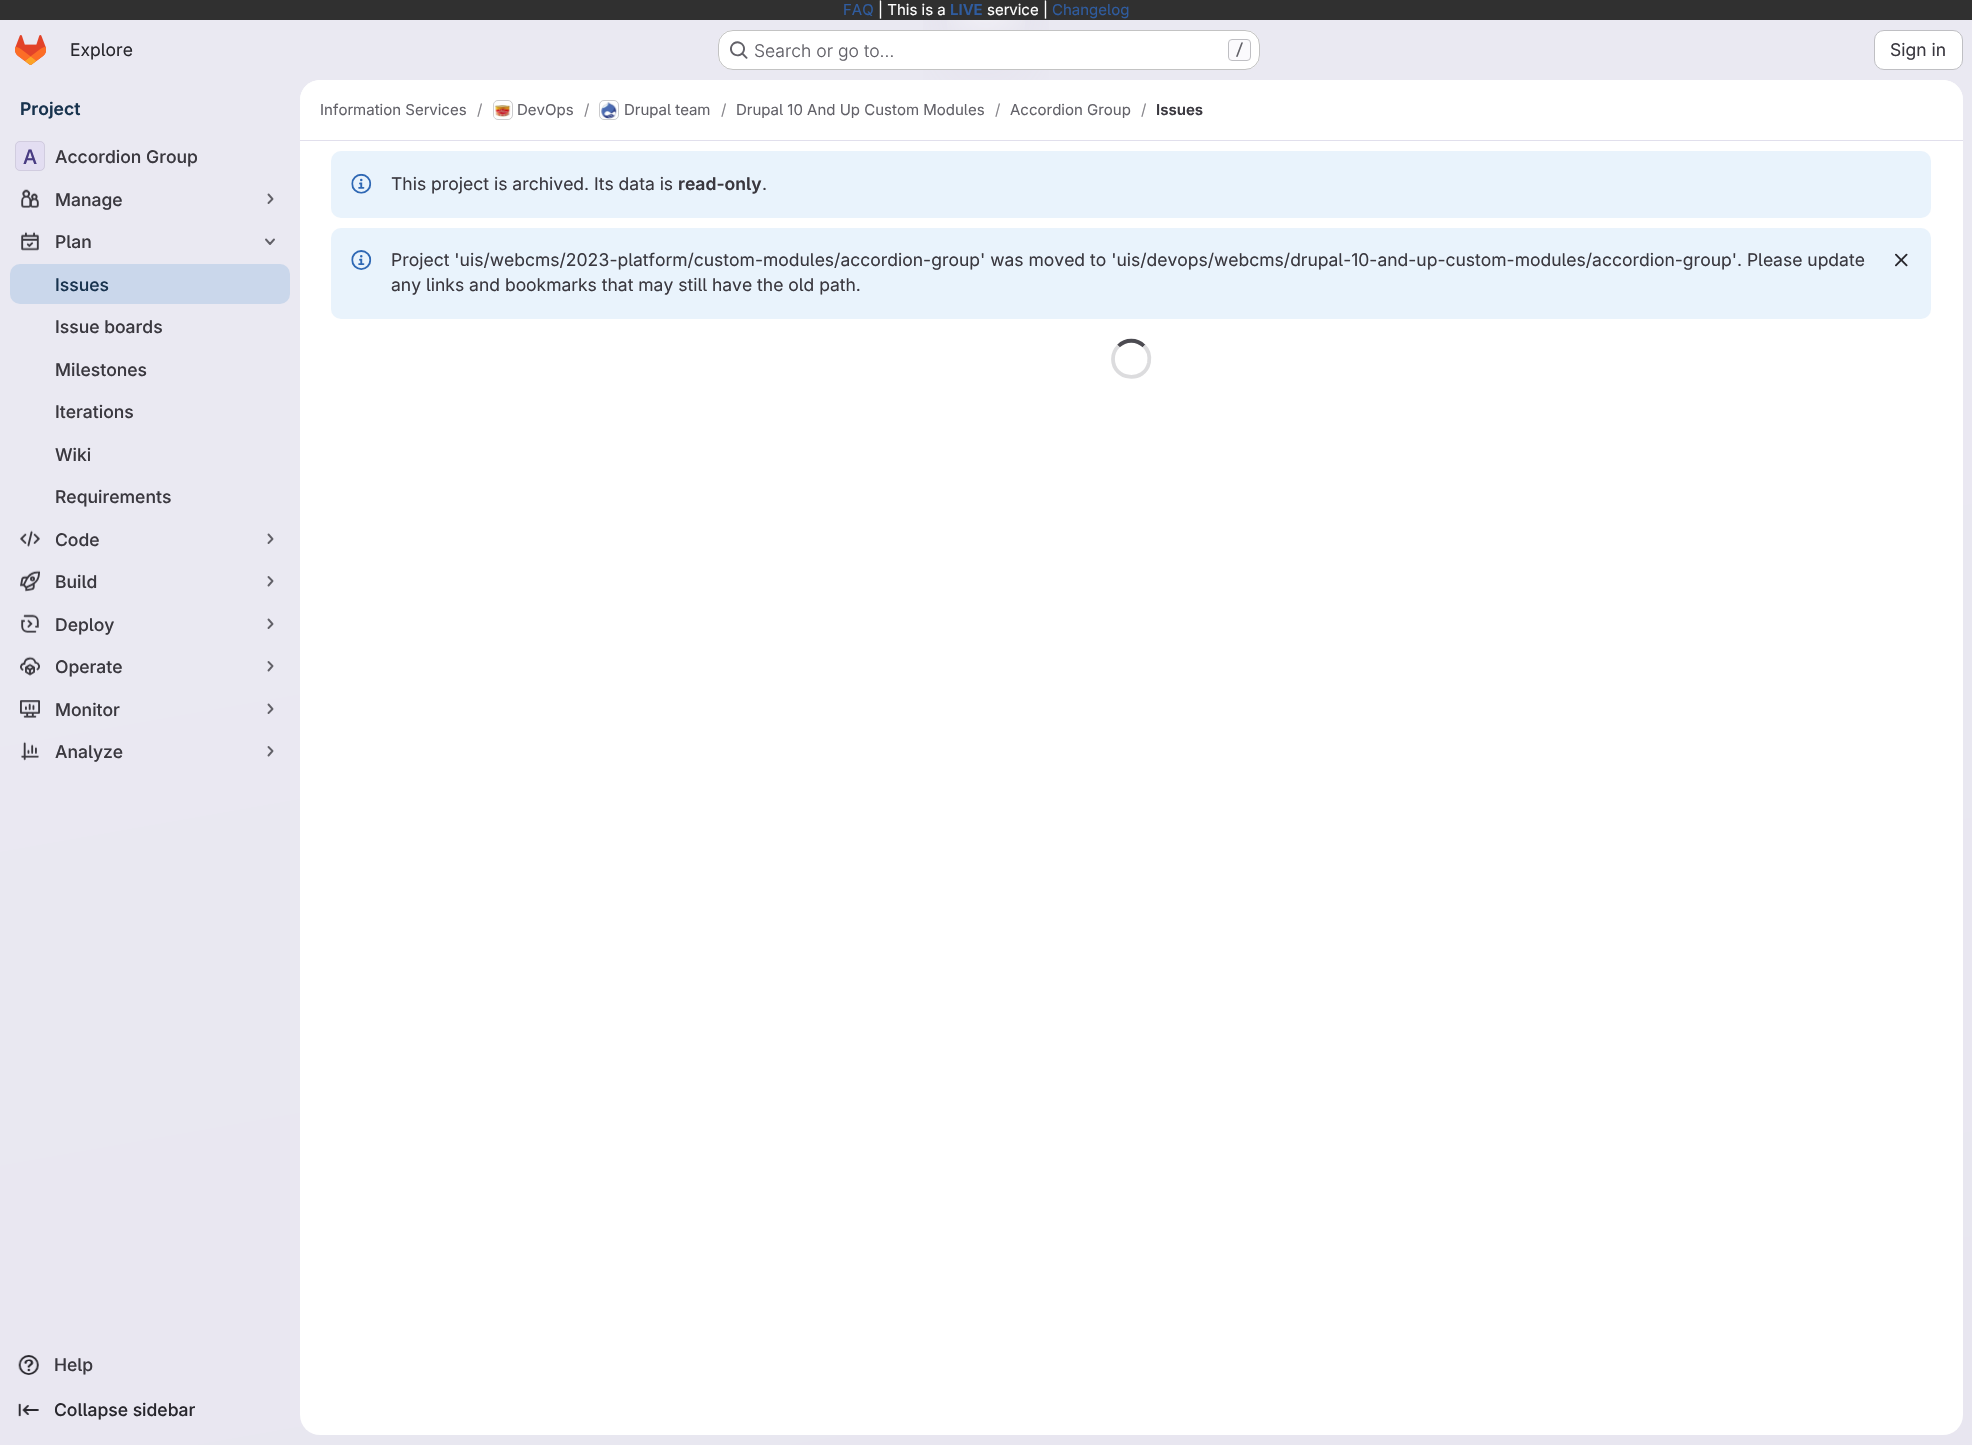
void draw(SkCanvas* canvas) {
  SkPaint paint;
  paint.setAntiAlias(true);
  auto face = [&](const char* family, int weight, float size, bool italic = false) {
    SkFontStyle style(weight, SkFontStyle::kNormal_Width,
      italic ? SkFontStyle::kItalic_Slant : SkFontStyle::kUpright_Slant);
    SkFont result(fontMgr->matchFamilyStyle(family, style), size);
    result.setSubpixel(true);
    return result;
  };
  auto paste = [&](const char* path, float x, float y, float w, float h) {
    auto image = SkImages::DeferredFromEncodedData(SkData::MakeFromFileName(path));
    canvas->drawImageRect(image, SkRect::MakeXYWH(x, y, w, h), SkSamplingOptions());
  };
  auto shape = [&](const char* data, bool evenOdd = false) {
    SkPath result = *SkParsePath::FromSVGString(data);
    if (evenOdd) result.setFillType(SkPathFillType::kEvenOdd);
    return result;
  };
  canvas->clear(0xffffffff);
  {
    const SkColor colors[] = {0xffe8e6f0, 0xffeae9f2};
    const float stops[] = {0, 0.7f};
    const SkPoint ends[] = {{1140, 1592}, {833, -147}};
    paint.setShader(SkGradientShader::MakeLinear(ends, colors, stops, 2, SkTileMode::kClamp));
    paint.setAlpha(255);
  }
  canvas->drawRect(SkRect::MakeXYWH(0, 20, 1972, 1425), paint);
  {
    const SkColor colors[] = {0xffe4e2ed, 0x00e4e2ed};
    const float stops[] = {0, 0.09f};
    SkMatrix m = SkMatrix::Translate(986, 0).preScale(986, 1445);
    paint.setShader(SkGradientShader::MakeRadial({0, 0}, 1, colors, stops, 2, SkTileMode::kClamp, 0, &m));
    paint.setAlpha(255);
  }
  canvas->drawRect(SkRect::MakeXYWH(923, 20, 126, 60), paint);
  {
    const SkColor colors[] = {0x99ffffff, 0x00ffffff};
    const float stops[] = {0, 0.03f};
    paint.setShader(SkGradientShader::MakeRadial({986, 0}, 1749, colors, stops, 2, SkTileMode::kClamp));
    paint.setAlpha(255);
  }
  canvas->drawRect(SkRect::MakeXYWH(947, 20, 78, 10), paint);
  paint.setShader(nullptr);
  paint.setColor(0xff303030);
  canvas->drawRect(SkRect::MakeXYWH(0, 0, 1972, 20), paint);
  paste("img/1.png", 15, 35, 31, 30);
  paint.setColor(0xffffffff);
  canvas->drawRoundRect(SkRect::MakeXYWH(718, 30, 542, 40), 15, 15, paint);
  paint.setStroke(true);
  paint.setStrokeWidth(1);
  paint.setColor(0x3d050506);
  canvas->drawRoundRect(SkRect::MakeXYWH(718.5f, 30.5f, 541, 39), 14.5f, 14.5f, paint);
  paste("img/2.png", 730, 41, 18, 18);
  paint.setStroke(false);
  paint.setColor(0xfffbfafd);
  canvas->drawRoundRect(SkRect::MakeXYWH(1228.5f, 39.5f, 22, 21), 3.5f, 3.5f, paint);
  paint.setStroke(true);
  paint.setColor(0xffbfbfc3);
  canvas->drawRoundRect(SkRect::MakeXYWH(1228.5f, 39.5f, 22, 21), 3.5f, 3.5f, paint);
  paint.setStroke(false);
  paint.setColor(0xffffffff);
  canvas->drawRoundRect(SkRect::MakeXYWH(1874.5f, 30.5f, 88, 39), 9.5f, 9.5f, paint);
  paint.setStroke(true);
  paint.setColor(0xffbfbfc3);
  canvas->drawRoundRect(SkRect::MakeXYWH(1874.5f, 30.5f, 88, 39), 9.5f, 9.5f, paint);
  paint.setStroke(false);
  paint.setColor(0xffe3def2);
  canvas->drawRoundRect(SkRect::MakeXYWH(15, 141, 30, 30), 5, 5, paint);
  paint.setStroke(true);
  paint.setColor(0x14050506);
  canvas->drawRoundRect(SkRect::MakeXYWH(15.5f, 141.5f, 29, 29), 4.5f, 4.5f, paint);
  paste("img/3.png", 21, 189, 18, 19);
  paint.setStrokeWidth(1.9f);
  paint.setStrokeCap(SkPaint::kRound_Cap);
  paint.setStrokeJoin(SkPaint::kRound_Join);
  paint.setColor(0xff626168);
  canvas->drawPath(shape("M268.5 194.5L272.5 199L268.5 203"), paint);
  paste("img/4.png", 21, 231, 18, 20);
  canvas->drawPath(shape("M274 239.5L270 244L266 239.5"), paint);
  paint.setStroke(false);
  paint.setColor(0xffcad7eb);
  canvas->drawRoundRect(SkRect::MakeXYWH(10, 264, 280, 40), 10, 10, paint);
  paste("img/5.png", 20, 530, 20, 17);
  paint.setStroke(true);
  paint.setColor(0xff626168);
  canvas->drawPath(shape("M268.5 534.5L272.5 539L268.5 543"), paint);
  paste("img/6.png", 20, 570, 20, 22);
  canvas->drawPath(shape("M268.5 577L272.5 581L268.5 585.5"), paint);
  paste("img/7.png", 21, 614, 18, 19);
  canvas->drawPath(shape("M268.5 619.5L272.5 624L268.5 628"), paint);
  paste("img/8.png", 20, 656, 20, 20);
  canvas->drawPath(shape("M268.5 662L272.5 666L268.5 670.5"), paint);
  paste("img/9.png", 20, 700, 20, 18);
  canvas->drawPath(shape("M268.5 704.5L272.5 709L268.5 713"), paint);
  paste("img/10.png", 21, 741, 18, 20);
  canvas->drawPath(shape("M268.5 747L272.5 751L268.5 755.5"), paint);
  paste("img/11.png", 18, 1355, 21, 20);
  paste("img/12.png", 18, 1403, 21, 14);
  paint.setStroke(false);
  paint.setColor(0xffffffff);
  canvas->drawRoundRect(SkRect::MakeXYWH(300, 80, 1663, 1355), 20, 20, paint);
  canvas->drawPath(shape("M320 80H1943C1954 80 1963 89 1963 100V141H300V100C300 89 309 80 320 80Z"), paint);
  paint.setColor(0xffe1dfec);
  canvas->drawRect(SkRect::MakeXYWH(300, 140, 1663, 1), paint);
  paint.setStroke(true);
  paint.setStrokeWidth(1);
  paint.setStrokeCap(SkPaint::kButt_Cap);
  paint.setStrokeJoin(SkPaint::kMiter_Join);
  paint.setColor(0xffdcdcde);
  canvas->drawRoundRect(SkRect::MakeXYWH(493.5f, 100.5f, 19, 19), 4.5f, 4.5f, paint);
  paste("img/13.png", 493, 101, 18, 18);
  paint.setColor(0x14050506);
  canvas->drawRoundRect(SkRect::MakeXYWH(493.5f, 100.5f, 19, 19), 4.5f, 4.5f, paint);
  paint.setColor(0xffdcdcde);
  canvas->drawRoundRect(SkRect::MakeXYWH(599.5f, 100.5f, 19, 19), 4.5f, 4.5f, paint);
  paste("img/14.png", 601, 101, 16, 18);
  paint.setColor(0x14050506);
  canvas->drawRoundRect(SkRect::MakeXYWH(599.5f, 100.5f, 19, 19), 4.5f, 4.5f, paint);
  paint.setStroke(false);
  paint.setColor(0xffe9f3fc);
  canvas->drawRoundRect(SkRect::MakeXYWH(331, 151, 1600, 67), 10, 10, paint);
  paste("img/15.png", 351, 173, 21, 21);
  canvas->drawRoundRect(SkRect::MakeXYWH(331, 228, 1600, 91), 10, 10, paint);
  paste("img/16.png", 351, 250, 21, 20);
  paste("img/17.png", 1895, 253, 13, 14);
  paint.setStroke(true);
  paint.setStrokeWidth(3.8f);
  paint.setColor(0xff4c4b51);
  canvas->drawPath(shape("M1118.5 346C1125.5 339 1137 339 1144 346"), paint);
  paint.setColor(0xffdcdcde);
  canvas->drawPath(shape("M1144 346C1148.5 350 1150 356.5 1149 362.5C1145 383.5 1113 380.5 1113 359C1113 354 1115 349.5 1118.5 346"), paint);
  auto f0 = face("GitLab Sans", 400, 15);
  paint.setStroke(false);
  paint.setColor(0xff2f5ca0);
  canvas->drawString("FAQ", 843, 15, f0, paint);
  paint.setColor(0xffffffff);
  canvas->drawString("| This is a", 878, 15, f0, paint);
  auto f1 = face("GitLab Sans", 600, 15);
  paint.setColor(0xff2f5ca0);
  canvas->drawString("LIVE", 950, 15, f1, paint);
  paint.setColor(0xffffffff);
  canvas->drawString("service |", 987, 15, f0, paint);
  paint.setColor(0xff2f5ca0);
  canvas->drawString("Changelog", 1052, 15, f0, paint);
  auto f2 = face("GitLab Sans", 400, 17.5f);
  paint.setColor(0xff28272d);
  canvas->drawString("Explore", 70, 56, f2, paint);
  auto f3 = face("GitLab Sans", 300, 17.5f);
  paint.setColor(0xff626168);
  canvas->drawString("Search or go to…", 754, 57, f3, paint);
  auto f4 = face("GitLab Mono", 500, 15);
  canvas->drawString("/", 1235, 55, f4, paint);
  paint.setColor(0xff3a383f);
  canvas->drawString("Sign in", 1890, 56, f2, paint);
  auto f5 = face("GitLab Sans", 600, 17.5f);
  paint.setColor(0xff18334e);
  canvas->drawString("Project", 20, 115, f5, paint);
  auto f6 = face("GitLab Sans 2", 500, 20);
  paint.setColor(0xff493c83);
  canvas->drawString("A", 23, 164, f6, paint);
  auto f7 = face("GitLab Sans", 500, 17.5f);
  paint.setColor(0xff3a383f);
  {
    const struct { const char* s; float x, y; } items[] = {
      {"Accordion Group", 55, 163},
      {"Manage", 55, 206},
      {"Plan", 55, 248},
    };
    for (auto [s, x, y] : items) {
      canvas->drawString(s, x, y, f7, paint);
    }
  }
  paint.setColor(0xff18334e);
  canvas->drawString("Issues", 55, 291, f7, paint);
  paint.setColor(0xff3a383f);
  {
    const struct { const char* s; float x, y; } items[] = {
      {"Issue boards", 55, 333},
      {"Milestones", 55, 376},
      {"Iterations", 55, 418},
      {"Wiki", 55, 461},
      {"Requirements", 55, 503},
      {"Code", 55, 546},
      {"Build", 55, 588},
      {"Deploy", 55, 631},
      {"Operate", 55, 673},
      {"Monitor", 55, 716},
      {"Analyze", 55, 758},
      {"Help", 54, 1371},
    };
    for (auto [s, x, y] : items) {
      canvas->drawString(s, x, y, f7, paint);
    }
  }
  paint.setColor(0xff28272d);
  canvas->drawString("Collapse sidebar", 54, 1416, f7, paint);
  paint.setColor(0xff626168);
  canvas->drawString("Information Services", 320, 115, f0, paint);
  paint.setColor(0xff89888d);
  canvas->drawString("/", 477, 115, f0, paint);
  paint.setColor(0xff626168);
  canvas->drawString("DevOps", 517, 115, f0, paint);
  paint.setColor(0xff89888d);
  canvas->drawString("/", 584, 115, f0, paint);
  paint.setColor(0xff626168);
  canvas->drawString("Drupal team", 624, 115, f0, paint);
  paint.setColor(0xff89888d);
  canvas->drawString("/", 721, 115, f0, paint);
  paint.setColor(0xff626168);
  canvas->drawString("Drupal 10 And Up Custom Modules", 736, 115, f0, paint);
  paint.setColor(0xff89888d);
  canvas->drawString("/", 995, 115, f0, paint);
  paint.setColor(0xff626168);
  canvas->drawString("Accordion Group", 1010, 115, f0, paint);
  paint.setColor(0xff89888d);
  canvas->drawString("/", 1141, 115, f0, paint);
  paint.setColor(0xff3a383f);
  canvas->drawString("Issues", 1156, 115, f1, paint);
  canvas->drawString("This project is archived. Its data is", 391, 190, f2, paint);
  canvas->drawString("read-only", 678, 190, f5, paint);
  {
    const struct { const char* s; float x, y; } items[] = {
      {".", 762, 190},
      {"Project 'uis/webcms/2023-platform/custom-modules/accordion-group' was moved to 'uis/devops/webcms/drupal-10-and-up-custom-modules/accordion-group'. Please update", 391, 266},
      {"any links and bookmarks that may still have the old path.", 391, 291},
    };
    for (auto [s, x, y] : items) {
      canvas->drawString(s, x, y, f2, paint);
    }
  }
}
